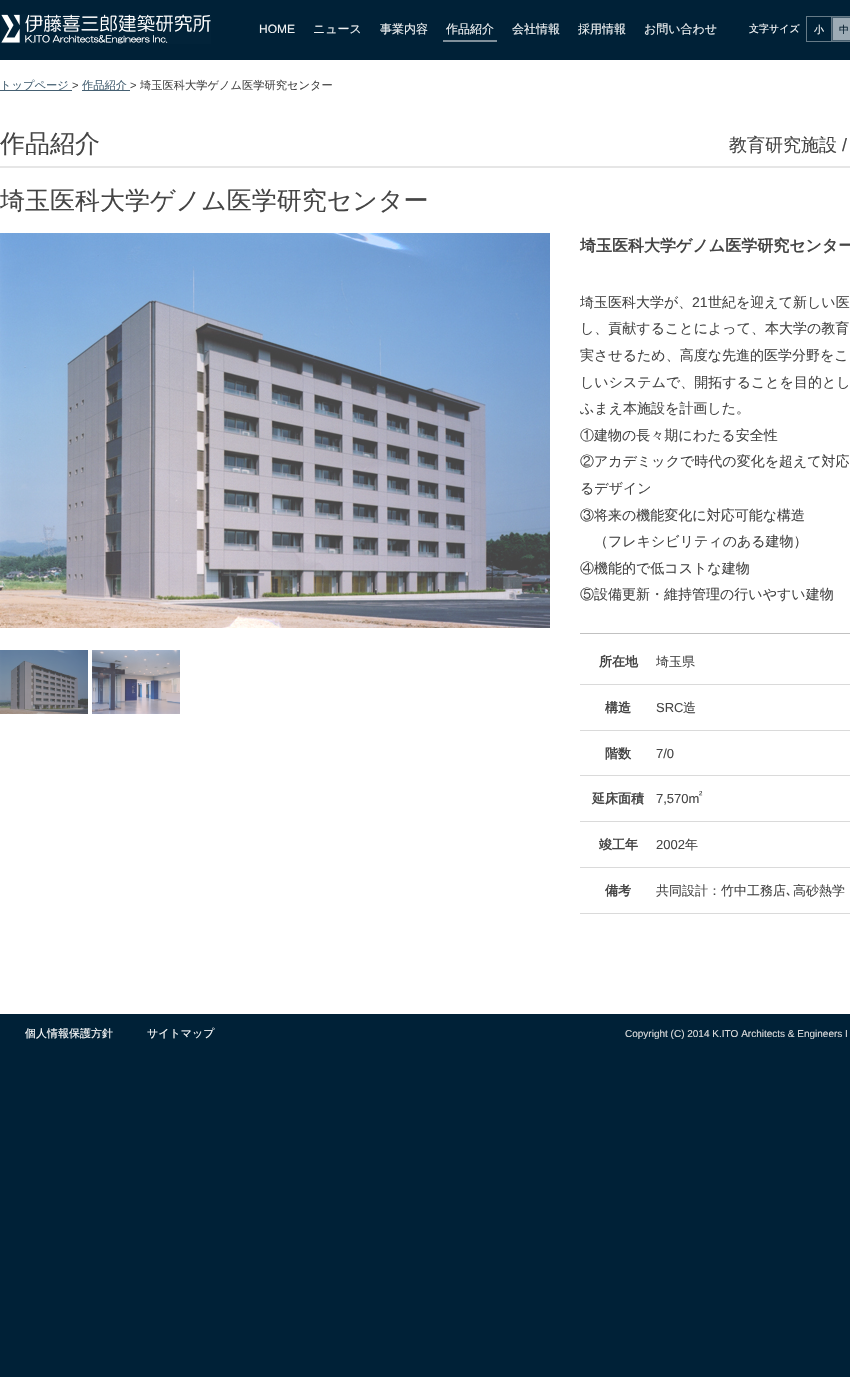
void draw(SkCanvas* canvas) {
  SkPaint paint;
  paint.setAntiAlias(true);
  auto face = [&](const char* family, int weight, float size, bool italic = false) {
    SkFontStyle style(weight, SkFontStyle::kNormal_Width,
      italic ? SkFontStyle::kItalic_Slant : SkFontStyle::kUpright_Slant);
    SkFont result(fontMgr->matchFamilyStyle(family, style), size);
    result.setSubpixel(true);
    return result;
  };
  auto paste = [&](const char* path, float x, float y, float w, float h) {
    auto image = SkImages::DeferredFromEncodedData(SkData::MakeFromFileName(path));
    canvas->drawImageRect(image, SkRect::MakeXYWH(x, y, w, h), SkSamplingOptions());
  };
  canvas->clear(0xff002137);
  paint.setColor(0xffffffff);
  canvas->drawRect(SkRect::MakeXYWH(0, 60, 850, 954), paint);
  paste("img/1.png", 1, 14, 210, 30);
  {
    const struct { float x, y, w, h; SkColor color; } items[] = {
      {443, 40, 54, 2, 0xff80909b},
      {806, 16, 44, 1, 0xff667a87},
      {806, 41, 44, 1, 0xff667a87},
      {806, 17, 1, 24, 0xff667a87},
      {831, 17, 1, 24, 0xff667a87},
    };
    for (auto [x, y, w, h, color] : items) {
      paint.setColor(color);
      canvas->drawRect(SkRect::MakeXYWH(x, y, w, h), paint);
    }
  }
  paint.setColor(0xff9dabb5);
  canvas->drawRect(SkRect::MakeXYWH(832.5f, 17.5f, 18, 23), paint);
  paint.setStroke(true);
  paint.setStrokeWidth(1);
  paint.setColor(0xff475f6f);
  canvas->drawRect(SkRect::MakeXYWH(832.5f, 17.5f, 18, 23), paint);
  paint.setStroke(false);
  {
    const struct { float x, y, w, h; SkColor color; } items[] = {
      {0, 90, 72, 1, 0xff456072},
      {82, 90, 48, 1, 0xff456072},
      {0, 166, 850, 2, 0xffe6e6e6},
    };
    for (auto [x, y, w, h, color] : items) {
      paint.setColor(color);
      canvas->drawRect(SkRect::MakeXYWH(x, y, w, h), paint);
    }
  }
  paste("img/2.png", 0, 233, 550, 395);
  paint.setColor(0xff454545);
  canvas->drawRect(SkRect::MakeXYWH(0, 650, 88, 64), paint);
  paste("img/3.png", 0, 650, 88, 64);
  paste("img/4.png", 92, 650, 88, 64);
  {
    const struct { float x, y, w, h; SkColor color; } items[] = {
      {580, 633, 270, 1, 0xffc1c1c1},
      {580, 684, 270, 1, 0xffdadada},
      {580, 730, 270, 1, 0xffdadada},
      {580, 775, 270, 1, 0xffdadada},
      {580, 821, 270, 1, 0xffdadada},
      {580, 867, 270, 1, 0xffdadada},
      {580, 913, 270, 1, 0xffdadada},
    };
    for (auto [x, y, w, h, color] : items) {
      paint.setColor(color);
      canvas->drawRect(SkRect::MakeXYWH(x, y, w, h), paint);
    }
  }
  auto f0 = face("Liberation Sans", 400, 12);
  paint.setColor(0xfff0f2f3);
  canvas->drawString("HOME", 259, 33, f0, paint);
  auto f1 = face("WenQuanYi Zen Hei", 500, 12);
  {
    const struct { const char* s; float x, y; } items[] = {
      {"ニュース", 313, 33},
      {"事業内容", 380, 33},
      {"作品紹介", 446, 33},
      {"会社情報", 512, 33},
      {"採用情報", 578, 33},
      {"お問い合わせ", 644, 33},
    };
    for (auto [s, x, y] : items) {
      canvas->drawString(s, x, y, f1, paint);
    }
  }
  auto f2 = face("WenQuanYi Zen Hei", 500, 10);
  paint.setColor(0xffffffff);
  canvas->drawString("文字サイズ", 749, 32, f2, paint);
  canvas->drawString("小", 814, 33, f2, paint);
  paint.setColor(0xff001a2b);
  canvas->drawString("中", 839, 33, f2, paint);
  auto f3 = face("WenQuanYi Zen Hei", 500, 11.25f);
  paint.setColor(0xff456072);
  canvas->drawString("トップページ", 0, 89, f3, paint);
  auto f4 = face("Liberation Sans", 400, 11.25f);
  paint.setColor(0xff454545);
  canvas->drawString(">", 72, 89, f4, paint);
  paint.setColor(0xff456072);
  canvas->drawString("作品紹介", 82, 89, f3, paint);
  paint.setColor(0xff454545);
  canvas->drawString(">", 130, 89, f4, paint);
  canvas->drawString("埼玉医科大学ゲノム医学研究センター", 140, 89, f3, paint);
  auto f5 = face("WenQuanYi Zen Hei", 500, 25);
  canvas->drawString("作品紹介", 0, 152, f5, paint);
  auto f6 = face("WenQuanYi Zen Hei", 500, 18);
  canvas->drawString("教育研究施設", 729, 151, f6, paint);
  auto f7 = face("Liberation Sans", 400, 18);
  canvas->drawString("/", 842, 151, f7, paint);
  canvas->drawString("埼玉医科大学ゲノム医学研究センター", 0, 209, f5, paint);
  auto f8 = face("WenQuanYi Zen Hei", 700, 16);
  canvas->drawString("埼玉医科大学ゲノム医学研究センター", 580, 251, f8, paint);
  auto f9 = face("WenQuanYi Zen Hei", 500, 14);
  canvas->drawString("埼玉医科大学が、", 580, 307, f9, paint);
  auto f10 = face("Liberation Sans", 400, 14);
  canvas->drawString("21", 692, 307, f10, paint);
  {
    const struct { const char* s; float x, y; } items[] = {
      {"世紀を迎えて新しい医", 708, 307},
      {"し、貢献することによって、本大学の教育", 580, 333},
      {"実させるため、高度な先進的医学分野をこ", 580, 360},
      {"しいシステムで、開拓することを目的とし", 580, 387},
      {"ふまえ本施設を計画した。", 580, 413},
      {"①建物の長々期にわたる安全性", 580, 440},
      {"②アカデミックで時代の変化を超えて対応", 580, 466},
      {"るデザイン", 580, 493},
      {"③将来の機能変化に対応可能な構造", 580, 520},
      {"（フレキシビリティのある建物）", 594, 546},
      {"④機能的で低コストな建物", 580, 573},
      {"⑤設備更新・維持管理の行いやすい建物", 580, 599},
    };
    for (auto [s, x, y] : items) {
      canvas->drawString(s, x, y, f9, paint);
    }
  }
  auto f11 = face("WenQuanYi Zen Hei", 700, 13);
  canvas->drawString("所在地", 599, 666, f11, paint);
  auto f12 = face("WenQuanYi Zen Hei", 500, 13);
  canvas->drawString("埼玉県", 656, 666, f12, paint);
  canvas->drawString("構造", 605, 712, f11, paint);
  auto f13 = face("Liberation Sans", 400, 13);
  canvas->drawString("SRC", 656, 712, f13, paint);
  canvas->drawString("造", 683, 712, f12, paint);
  canvas->drawString("階数", 605, 758, f11, paint);
  canvas->drawString("7/0", 656, 758, f13, paint);
  canvas->drawString("延床面積", 592, 803, f11, paint);
  canvas->drawString("7,570m", 656, 803, f13, paint);
  auto f14 = face("Liberation Sans", 400, 10);
  canvas->drawString("²", 699, 798, f14, paint);
  canvas->drawString("竣工年", 599, 849, f11, paint);
  canvas->drawString("2002", 656, 849, f13, paint);
  canvas->drawString("年", 685, 849, f12, paint);
  canvas->drawString("備考", 605, 895, f11, paint);
  canvas->drawString("共同設計：竹中工務店", 656, 895, f12, paint);
  auto f15 = face("IPAPGothic", 400, 13);
  canvas->drawString("､", 786, 895, f15, paint);
  canvas->drawString("高砂熱学", 793, 895, f12, paint);
  auto f16 = face("WenQuanYi Zen Hei", 500, 11);
  paint.setColor(0xffffffff);
  canvas->drawString("個人情報保護方針", 25, 1037, f16, paint);
  canvas->drawString("サイトマップ", 147, 1037, f16, paint);
  paint.setColor(0xffdddddd);
  canvas->drawString("Copyright (C) 2014 K.ITO Architects & Engineers I", 625, 1037, f14, paint);
}
